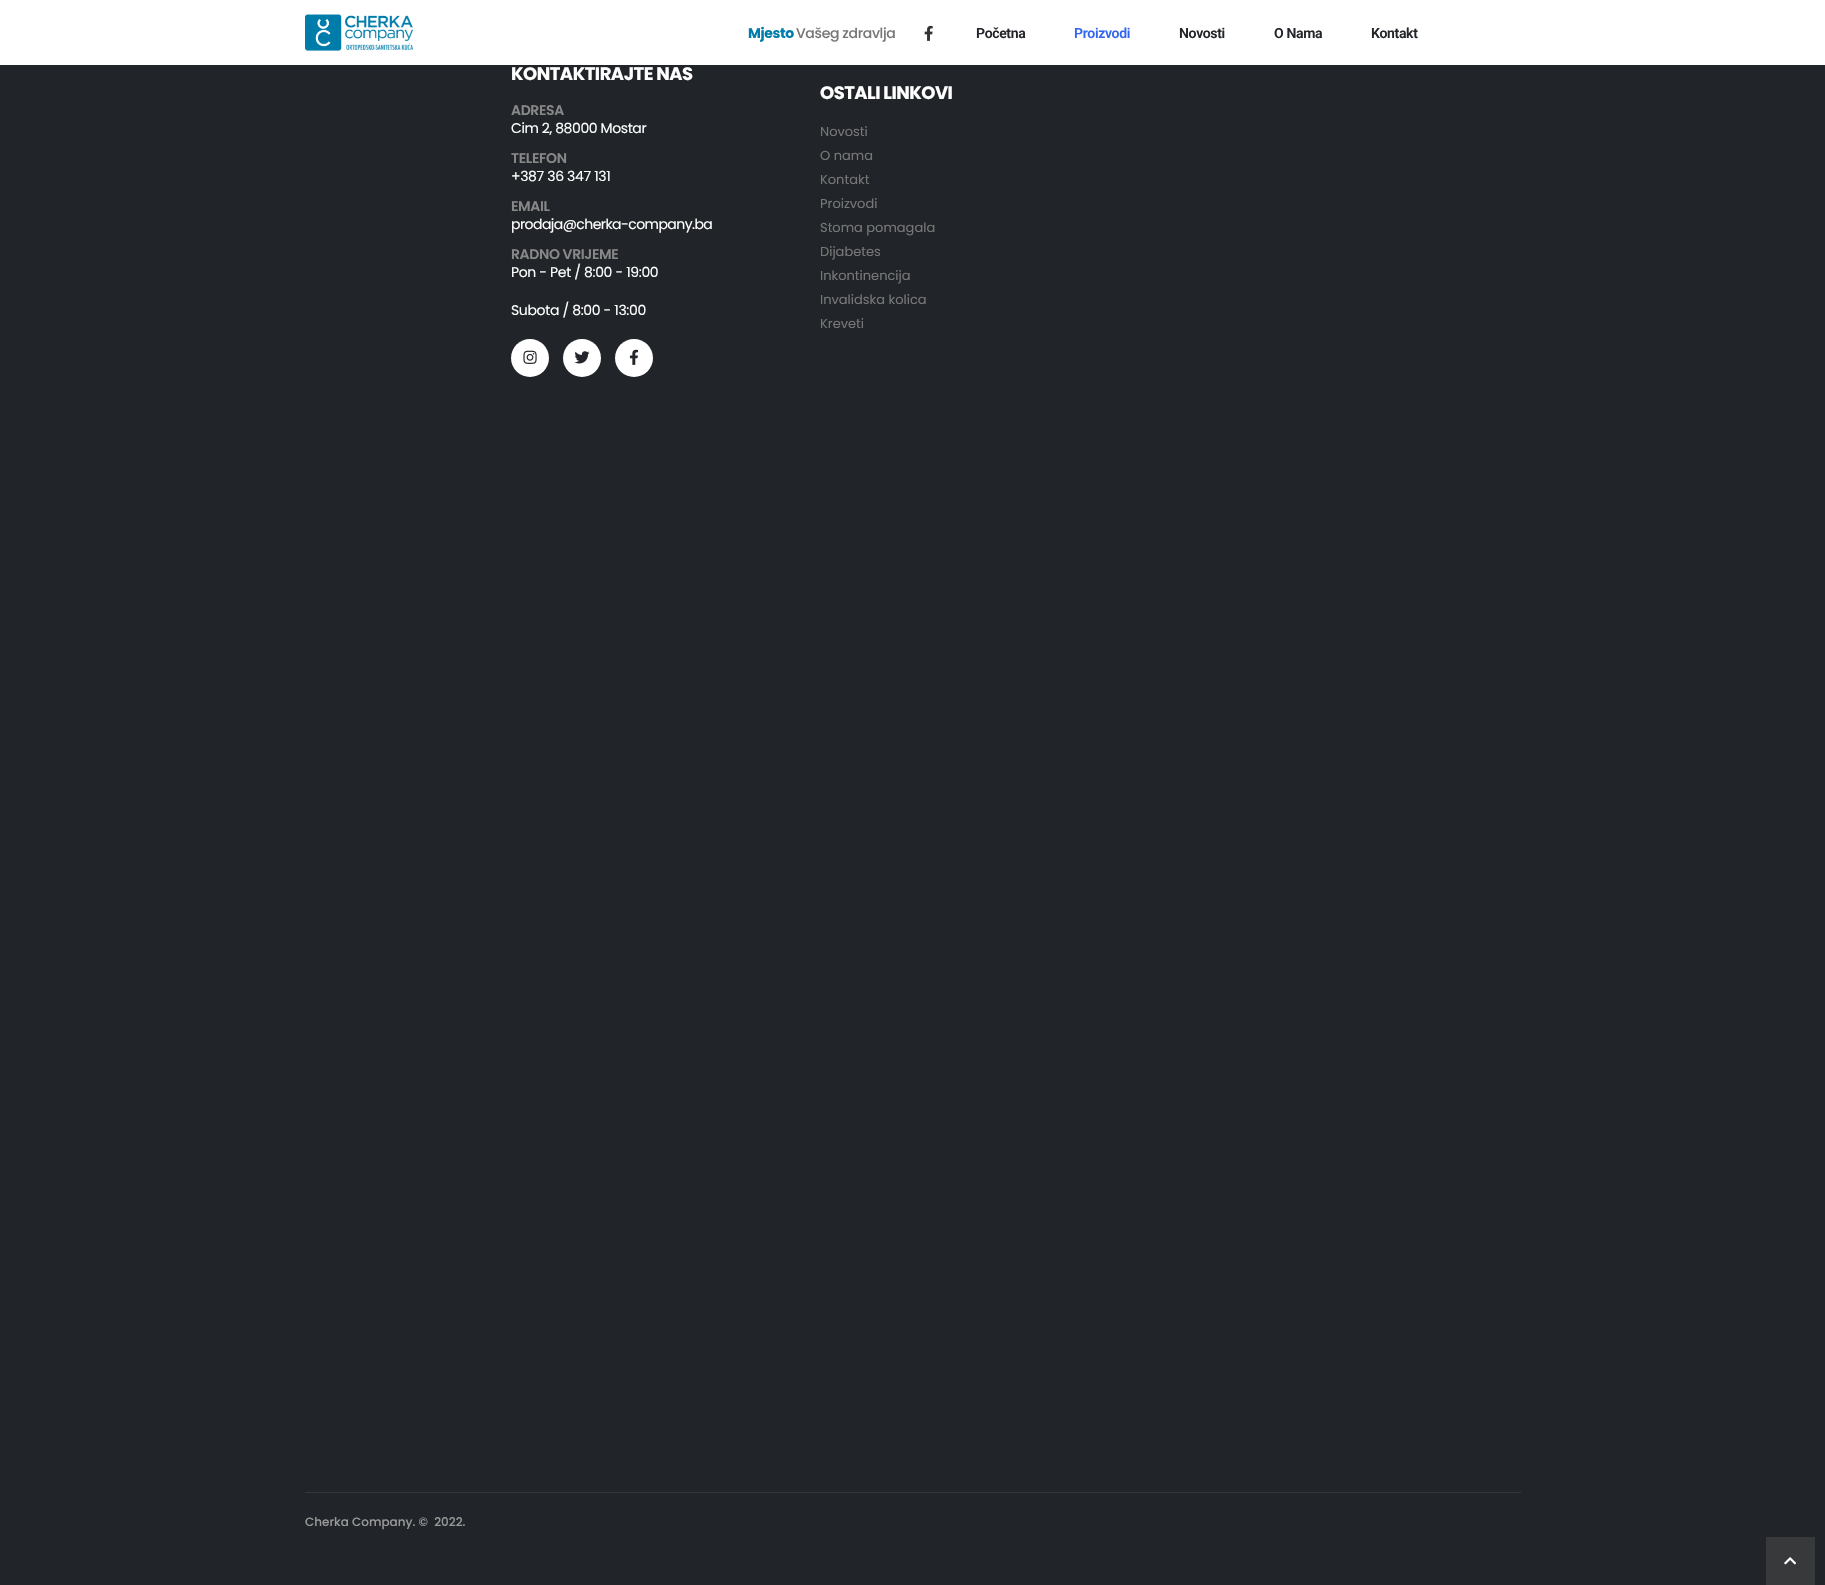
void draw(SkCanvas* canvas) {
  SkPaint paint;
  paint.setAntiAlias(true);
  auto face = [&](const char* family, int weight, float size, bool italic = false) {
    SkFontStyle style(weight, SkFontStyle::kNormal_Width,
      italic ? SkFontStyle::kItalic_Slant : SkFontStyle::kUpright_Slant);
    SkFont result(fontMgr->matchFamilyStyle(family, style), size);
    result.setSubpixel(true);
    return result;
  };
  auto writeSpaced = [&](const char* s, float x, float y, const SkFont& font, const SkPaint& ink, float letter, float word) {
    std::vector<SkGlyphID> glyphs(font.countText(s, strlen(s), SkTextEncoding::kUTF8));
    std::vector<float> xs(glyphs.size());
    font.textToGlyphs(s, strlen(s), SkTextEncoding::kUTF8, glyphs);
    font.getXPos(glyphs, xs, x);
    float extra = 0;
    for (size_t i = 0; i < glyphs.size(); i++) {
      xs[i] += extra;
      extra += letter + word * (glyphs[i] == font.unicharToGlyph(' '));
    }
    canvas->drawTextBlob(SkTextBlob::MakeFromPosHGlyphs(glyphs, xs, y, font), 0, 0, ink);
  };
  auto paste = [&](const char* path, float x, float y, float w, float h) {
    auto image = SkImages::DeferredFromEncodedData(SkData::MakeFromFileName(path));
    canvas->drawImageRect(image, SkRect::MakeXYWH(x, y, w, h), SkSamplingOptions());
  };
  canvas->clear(0xff212529);
  paint.setColor(0xffffffff);
  canvas->drawRect(SkRect::MakeXYWH(0, 0, 1825, 65), paint);
  paste("img/1.png", 305, 14, 108, 37);
  paste("img/2.png", 924, 25, 9, 16);
  canvas->drawCircle(530, 358, 19, paint);
  paste("img/3.png", 523, 350, 14, 14);
  canvas->drawCircle(582, 358, 19, paint);
  paste("img/4.png", 574, 351, 16, 13);
  canvas->drawCircle(634, 358, 19, paint);
  paste("img/5.png", 629, 349, 10, 16);
  paint.setColor(0xff34383b);
  canvas->drawRect(SkRect::MakeXYWH(305, 1492, 1216, 1), paint);
  paint.setColor(0xff38393a);
  canvas->drawRect(SkRect::MakeXYWH(1766, 1537, 49, 48), paint);
  paste("img/6.png", 1784, 1557, 12, 8);
  auto f0 = face("Poppins", 700, 14);
  paint.setColor(0xff007cab);
  writeSpaced("Mjesto", 748, 38, f0, paint, -0.35f, 0);
  auto f1 = face("Poppins", 500, 14);
  paint.setColor(0xff777777);
  writeSpaced("Vašeg zdravlja", 796, 38, f1, paint, -0.35f, 0);
  auto f2 = face("Roboto", 600, 14);
  paint.setColor(0xff222529);
  writeSpaced("Početna", 976, 38, f2, paint, -0.35f, 0);
  paint.setColor(0xff3467ef);
  writeSpaced("Proizvodi", 1074, 38, f2, paint, -0.35f, 0);
  paint.setColor(0xff222529);
  {
    const struct { const char* s; float x, y; } items[] = {
      {"Novosti", 1179, 38},
      {"O Nama", 1274, 38},
      {"Kontakt", 1371, 38},
    };
    for (auto [s, x, y] : items) {
      writeSpaced(s, x, y, f2, paint, -0.35f, 0);
    }
  }
  auto f3 = face("Poppins", 700, 18);
  paint.setColor(0xffffffff);
  writeSpaced("KONTAKTIRAJTE NAS", 511, 80, f3, paint, -0.5f, 0);
  auto f4 = face("Poppins", 600, 14);
  paint.setColor(0xff888888);
  writeSpaced("ADRESA", 511, 115, f4, paint, -0.35f, 0);
  auto f5 = face("Poppins", 400, 14);
  paint.setColor(0xffffffff);
  writeSpaced("Cim 2, 88000 Mostar", 511, 133, f5, paint, -0.4f, 0);
  paint.setColor(0xff888888);
  writeSpaced("TELEFON", 511, 163, f4, paint, -0.35f, 0);
  paint.setColor(0xffffffff);
  writeSpaced("+387 36 347 131", 511, 181, f5, paint, -0.35f, 0);
  paint.setColor(0xff888888);
  writeSpaced("EMAIL", 511, 211, f4, paint, -0.35f, 0);
  paint.setColor(0xffffffff);
  writeSpaced("prodaja@cherka-company.ba", 511, 229, f5, paint, -0.55f, 0);
  paint.setColor(0xff888888);
  writeSpaced("RADNO VRIJEME", 511, 259, f4, paint, -0.35f, 0);
  paint.setColor(0xffffffff);
  writeSpaced("Pon - Pet / 8:00 - 19:00", 511, 277, f5, paint, -0.35f, 0);
  writeSpaced("Subota / 8:00 - 13:00", 511, 315, f5, paint, -0.35f, 0);
  writeSpaced("OSTALI LINKOVI", 820, 99, f3, paint, -0.5f, 0);
  auto f6 = face("Poppins", 400, 13);
  paint.setColor(0xff777777);
  {
    const struct { const char* s; float x, y; } items[] = {
      {"Novosti", 820, 136},
      {"O nama", 820, 160},
      {"Kontakt", 820, 184},
      {"Proizvodi", 820, 208},
      {"Stoma pomagala", 820, 232},
      {"Dijabetes", 820, 256},
      {"Inkontinencija", 820, 280},
      {"Invalidska kolica", 820, 304},
      {"Kreveti", 820, 328},
    };
    for (auto [s, x, y] : items) {
      canvas->drawString(s, x, y, f6, paint);
    }
  }
  auto f7 = face("Poppins", 500, 12);
  paint.setColor(0xff999999);
  canvas->drawString("Cherka Company. ©  2022.", 305, 1526, f7, paint);
}
